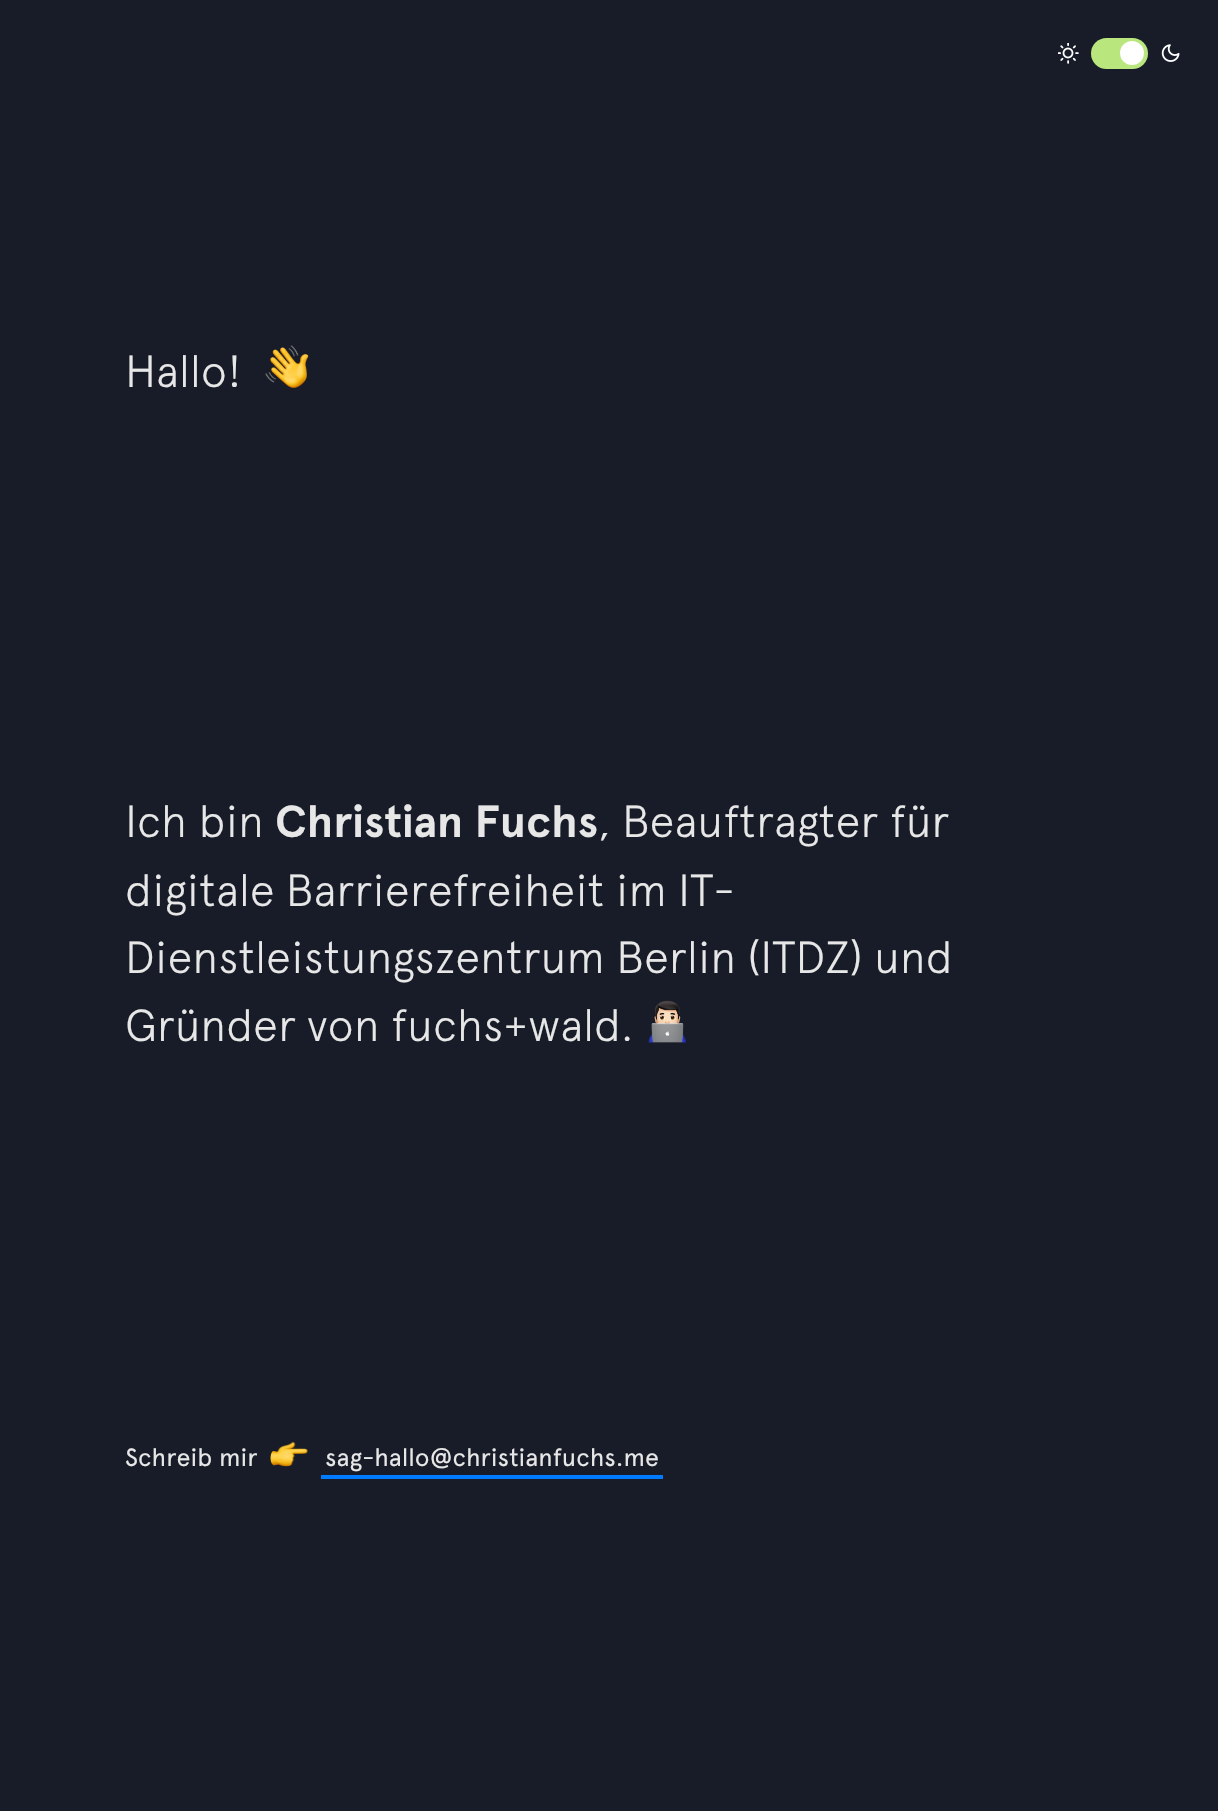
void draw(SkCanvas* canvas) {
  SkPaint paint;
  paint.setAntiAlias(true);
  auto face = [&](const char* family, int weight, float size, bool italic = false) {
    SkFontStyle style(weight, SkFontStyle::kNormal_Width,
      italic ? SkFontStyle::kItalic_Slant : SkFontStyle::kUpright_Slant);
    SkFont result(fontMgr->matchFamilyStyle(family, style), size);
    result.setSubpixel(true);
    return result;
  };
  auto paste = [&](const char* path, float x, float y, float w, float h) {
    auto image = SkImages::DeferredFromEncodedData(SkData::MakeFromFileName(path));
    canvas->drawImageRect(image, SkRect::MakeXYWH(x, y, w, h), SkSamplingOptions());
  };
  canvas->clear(0xff171c28);
  paste("img/1.png", 1058, 43, 21, 21);
  paint.setColor(0xffbae67e);
  canvas->drawRoundRect(SkRect::MakeXYWH(1091, 38, 57, 31), 15.5f, 15.5f, paint);
  paint.setColor(0xffffffff);
  canvas->drawCircle(1132, 53, 12, paint);
  paste("img/2.png", 1161, 44, 19, 18);
  paste("img/3.png", 265, 345, 44, 43);
  paste("img/4.png", 648, 1000, 39, 43);
  paste("img/5.png", 270, 1441, 38, 26);
  paint.setColor(0xff007bff);
  canvas->drawRect(SkRect::MakeXYWH(321, 1475, 342, 4), paint);
  auto f0 = face("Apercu", 300, 45);
  paint.setColor(0xffe7e7e7);
  canvas->drawString("Hallo!", 125, 387, f0, paint);
  canvas->drawString("Ich bin", 125, 837, f0, paint);
  auto f1 = face("Apercu", 700, 45);
  canvas->drawString("Christian Fuchs", 275, 837, f1, paint);
  {
    const struct { const char* s; float x, y; } items[] = {
      {", Beauftragter für", 598, 837},
      {"digitale Barrierefreiheit im IT-", 125, 906},
      {"Dienstleistungszentrum Berlin (ITDZ) und", 125, 973},
      {"Gründer von fuchs+wald.", 125, 1041},
    };
    for (auto [s, x, y] : items) {
      canvas->drawString(s, x, y, f0, paint);
    }
  }
  auto f2 = face("Apercu", 400, 25);
  canvas->drawString("Schreib mir", 125, 1466, f2, paint);
  canvas->drawString("sag-hallo@christianfuchs.me", 325, 1466, f2, paint);
}
